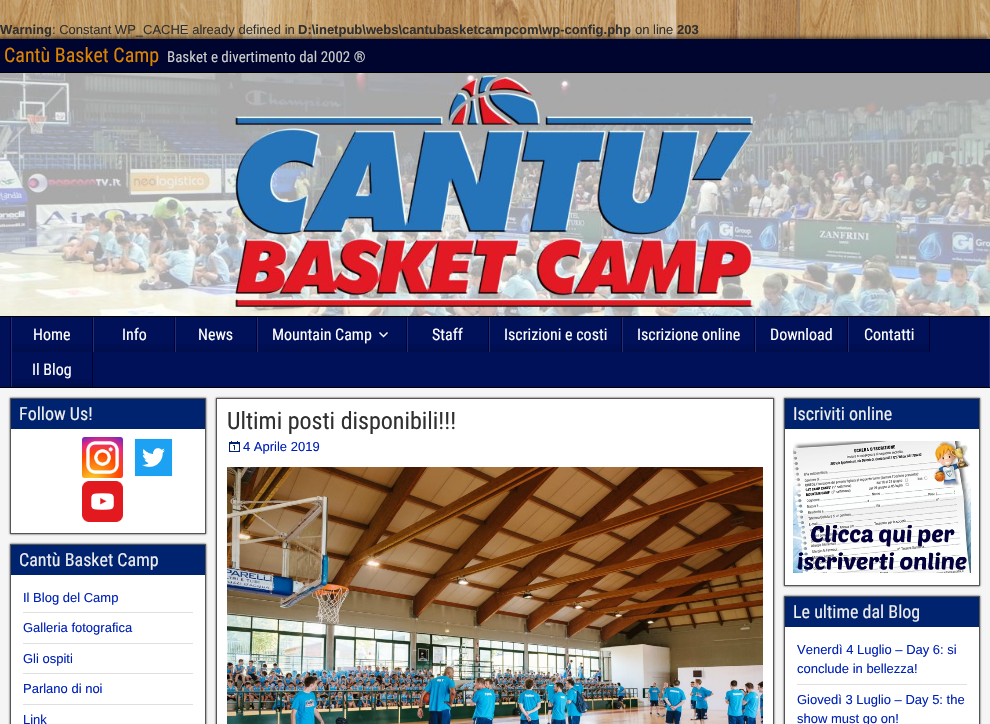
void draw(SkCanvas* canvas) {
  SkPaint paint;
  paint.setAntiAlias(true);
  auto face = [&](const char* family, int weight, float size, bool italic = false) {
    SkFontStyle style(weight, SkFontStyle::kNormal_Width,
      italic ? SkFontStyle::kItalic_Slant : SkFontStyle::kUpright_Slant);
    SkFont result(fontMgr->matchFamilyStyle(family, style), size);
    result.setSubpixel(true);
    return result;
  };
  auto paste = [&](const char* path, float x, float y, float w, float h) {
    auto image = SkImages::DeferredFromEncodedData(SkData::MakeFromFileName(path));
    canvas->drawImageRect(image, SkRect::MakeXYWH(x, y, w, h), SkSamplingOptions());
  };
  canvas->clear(0xffffffff);
  paste("img/1.png", 0, 0, 990, 39);
  paint.setColor(0xff000000);
  paint.setMaskFilter(SkMaskFilter::MakeBlur(kNormal_SkBlurStyle, 3));
  canvas->drawRect(SkRect::MakeXYWH(0, 39, 990, 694), paint);
  paint.setMaskFilter(nullptr);
  paint.setColor(0xff000530);
  canvas->drawRect(SkRect::MakeXYWH(0, 39, 990, 33), paint);
  paint.setColor(0xff000000);
  canvas->drawRect(SkRect::MakeXYWH(0, 72, 990, 1), paint);
  paste("img/2.png", 0, 73, 990, 243);
  {
    const struct { float x, y, w, h; SkColor color; } items[] = {
      {0, 316, 990, 1, 0xff000000},
      {0, 317, 989, 70, 0xff001059},
      {0, 387, 990, 1, 0xff000000},
      {989, 317, 1, 70, 0xff1e2e77},
      {10, 317, 1, 70, 0xff000031},
    };
    for (auto [x, y, w, h, color] : items) {
      paint.setColor(color);
      canvas->drawRect(SkRect::MakeXYWH(x, y, w, h), paint);
    }
  }
  {
    const SkColor colors[] = {0xff001059, 0xff000e4c};
    const float stops[] = {0.7f, 1};
    const SkPoint ends[] = {{52, 317}, {52, 352}};
    paint.setShader(SkGradientShader::MakeLinear(ends, colors, stops, 2, SkTileMode::kClamp));
    paint.setAlpha(255);
  }
  canvas->drawRect(SkRect::MakeXYWH(12, 344, 80, 8), paint);
  paint.setShader(nullptr);
  paint.setColor(0xff000031);
  canvas->drawRect(SkRect::MakeXYWH(92, 317, 1, 70), paint);
  paint.setColor(0xff1e2e77);
  canvas->drawRect(SkRect::MakeXYWH(11, 317, 1, 70), paint);
  {
    const SkColor colors[] = {0xff001059, 0xff000e4c};
    const float stops[] = {0.7f, 1};
    const SkPoint ends[] = {{134, 317}, {134, 352}};
    paint.setShader(SkGradientShader::MakeLinear(ends, colors, stops, 2, SkTileMode::kClamp));
    paint.setAlpha(255);
  }
  canvas->drawRect(SkRect::MakeXYWH(94, 344, 80, 8), paint);
  paint.setShader(nullptr);
  paint.setColor(0xff000031);
  canvas->drawRect(SkRect::MakeXYWH(174, 317, 1, 35), paint);
  paint.setColor(0xff1e2e77);
  canvas->drawRect(SkRect::MakeXYWH(93, 317, 1, 35), paint);
  {
    const SkColor colors[] = {0xff001059, 0xff000e4c};
    const float stops[] = {0.7f, 1};
    const SkPoint ends[] = {{216, 317}, {216, 352}};
    paint.setShader(SkGradientShader::MakeLinear(ends, colors, stops, 2, SkTileMode::kClamp));
    paint.setAlpha(255);
  }
  canvas->drawRect(SkRect::MakeXYWH(176, 344, 80, 8), paint);
  paint.setShader(nullptr);
  paint.setColor(0xff000031);
  canvas->drawRect(SkRect::MakeXYWH(256, 317, 1, 35), paint);
  paint.setColor(0xff1e2e77);
  canvas->drawRect(SkRect::MakeXYWH(175, 317, 1, 35), paint);
  {
    const SkColor colors[] = {0xff001059, 0xff000e4c};
    const float stops[] = {0.7f, 1};
    const SkPoint ends[] = {{332, 317}, {332, 352}};
    paint.setShader(SkGradientShader::MakeLinear(ends, colors, stops, 2, SkTileMode::kClamp));
    paint.setAlpha(255);
  }
  canvas->drawRect(SkRect::MakeXYWH(258, 344, 148, 8), paint);
  paint.setShader(nullptr);
  paint.setColor(0xff000031);
  canvas->drawRect(SkRect::MakeXYWH(406, 317, 1, 35), paint);
  paint.setColor(0xff1e2e77);
  canvas->drawRect(SkRect::MakeXYWH(257, 317, 1, 35), paint);
  paste("img/3.png", 379, 332, 9, 6);
  {
    const SkColor colors[] = {0xff001059, 0xff000e4c};
    const float stops[] = {0.7f, 1};
    const SkPoint ends[] = {{448, 317}, {448, 352}};
    paint.setShader(SkGradientShader::MakeLinear(ends, colors, stops, 2, SkTileMode::kClamp));
    paint.setAlpha(255);
  }
  canvas->drawRect(SkRect::MakeXYWH(408, 344, 80, 8), paint);
  paint.setShader(nullptr);
  paint.setColor(0xff000031);
  canvas->drawRect(SkRect::MakeXYWH(488, 317, 1, 35), paint);
  paint.setColor(0xff1e2e77);
  canvas->drawRect(SkRect::MakeXYWH(407, 317, 1, 35), paint);
  {
    const SkColor colors[] = {0xff001059, 0xff000e4c};
    const float stops[] = {0.7f, 1};
    const SkPoint ends[] = {{556, 317}, {556, 352}};
    paint.setShader(SkGradientShader::MakeLinear(ends, colors, stops, 2, SkTileMode::kClamp));
    paint.setAlpha(255);
  }
  canvas->drawRect(SkRect::MakeXYWH(490, 344, 131, 8), paint);
  paint.setShader(nullptr);
  paint.setColor(0xff000031);
  canvas->drawRect(SkRect::MakeXYWH(621, 317, 1, 35), paint);
  paint.setColor(0xff1e2e77);
  canvas->drawRect(SkRect::MakeXYWH(489, 317, 1, 35), paint);
  {
    const SkColor colors[] = {0xff001059, 0xff000e4c};
    const float stops[] = {0.7f, 1};
    const SkPoint ends[] = {{689, 317}, {689, 352}};
    paint.setShader(SkGradientShader::MakeLinear(ends, colors, stops, 2, SkTileMode::kClamp));
    paint.setAlpha(255);
  }
  canvas->drawRect(SkRect::MakeXYWH(623, 344, 131, 8), paint);
  paint.setShader(nullptr);
  paint.setColor(0xff000031);
  canvas->drawRect(SkRect::MakeXYWH(754, 317, 1, 35), paint);
  paint.setColor(0xff1e2e77);
  canvas->drawRect(SkRect::MakeXYWH(622, 317, 1, 35), paint);
  {
    const SkColor colors[] = {0xff001059, 0xff000e4c};
    const float stops[] = {0.7f, 1};
    const SkPoint ends[] = {{802, 317}, {802, 352}};
    paint.setShader(SkGradientShader::MakeLinear(ends, colors, stops, 2, SkTileMode::kClamp));
    paint.setAlpha(255);
  }
  canvas->drawRect(SkRect::MakeXYWH(756, 344, 91, 8), paint);
  paint.setShader(nullptr);
  paint.setColor(0xff000031);
  canvas->drawRect(SkRect::MakeXYWH(847, 317, 1, 35), paint);
  paint.setColor(0xff1e2e77);
  canvas->drawRect(SkRect::MakeXYWH(755, 317, 1, 35), paint);
  {
    const SkColor colors[] = {0xff001059, 0xff000e4c};
    const float stops[] = {0.7f, 1};
    const SkPoint ends[] = {{889, 317}, {889, 352}};
    paint.setShader(SkGradientShader::MakeLinear(ends, colors, stops, 2, SkTileMode::kClamp));
    paint.setAlpha(255);
  }
  canvas->drawRect(SkRect::MakeXYWH(849, 344, 80, 8), paint);
  paint.setShader(nullptr);
  paint.setColor(0xff000031);
  canvas->drawRect(SkRect::MakeXYWH(929, 317, 1, 35), paint);
  paint.setColor(0xff1e2e77);
  canvas->drawRect(SkRect::MakeXYWH(848, 317, 1, 35), paint);
  {
    const SkColor colors[] = {0xff001059, 0xff000e4c};
    const float stops[] = {0.7f, 1};
    const SkPoint ends[] = {{52, 352}, {52, 387}};
    paint.setShader(SkGradientShader::MakeLinear(ends, colors, stops, 2, SkTileMode::kClamp));
    paint.setAlpha(255);
  }
  canvas->drawRect(SkRect::MakeXYWH(12, 379, 80, 8), paint);
  paint.setShader(nullptr);
  paint.setColor(0xfff5f5f5);
  canvas->drawRect(SkRect::MakeXYWH(0, 388, 990, 336), paint);
  paint.setColor(0xff333333);
  paint.setMaskFilter(SkMaskFilter::MakeBlur(kNormal_SkBlurStyle, 1));
  canvas->drawRect(SkRect::MakeXYWH(10, 398, 196, 136), paint);
  paint.setMaskFilter(nullptr);
  paint.setColor(0xffffffff);
  canvas->drawRect(SkRect::MakeXYWH(11, 429, 194, 104), paint);
  paint.setStroke(true);
  paint.setStrokeWidth(1);
  paint.setColor(0xff555555);
  canvas->drawRect(SkRect::MakeXYWH(10.5f, 398.5f, 195, 135), paint);
  paint.setStroke(false);
  paint.setColor(0xff002370);
  canvas->drawRect(SkRect::MakeXYWH(11, 399, 194, 30), paint);
  paste("img/4.png", 82, 437, 41, 41);
  paste("img/5.png", 134, 438, 39, 39);
  paste("img/6.png", 82, 481, 41, 41);
  paint.setColor(0xff333333);
  paint.setMaskFilter(SkMaskFilter::MakeBlur(kNormal_SkBlurStyle, 1));
  canvas->drawRect(SkRect::MakeXYWH(10, 544, 196, 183), paint);
  paint.setMaskFilter(nullptr);
  paint.setColor(0xffffffff);
  canvas->drawRect(SkRect::MakeXYWH(11, 575, 194, 149), paint);
  paint.setStroke(true);
  paint.setColor(0xff555555);
  canvas->drawRect(SkRect::MakeXYWH(10.5f, 544.5f, 195, 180), paint);
  paint.setStroke(false);
  {
    const struct { float x, y, w, h; SkColor color; } items[] = {
      {11, 545, 194, 30, 0xff002370},
      {23, 612, 170, 1, 0xffe0e0e0},
      {23, 643, 170, 1, 0xffe0e0e0},
      {23, 673, 170, 1, 0xffe0e0e0},
      {23, 704, 170, 1, 0xffe0e0e0},
    };
    for (auto [x, y, w, h, color] : items) {
      paint.setColor(color);
      canvas->drawRect(SkRect::MakeXYWH(x, y, w, h), paint);
    }
  }
  paint.setColor(0xff333333);
  paint.setMaskFilter(SkMaskFilter::MakeBlur(kNormal_SkBlurStyle, 1));
  canvas->drawRect(SkRect::MakeXYWH(216, 398, 558, 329), paint);
  paint.setMaskFilter(nullptr);
  paint.setColor(0xffffffff);
  canvas->drawRect(SkRect::MakeXYWH(216.5f, 398.5f, 557, 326), paint);
  paint.setStroke(true);
  paint.setColor(0xff555555);
  canvas->drawRect(SkRect::MakeXYWH(216.5f, 398.5f, 557, 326), paint);
  paste("img/7.png", 229, 441, 11, 11);
  paste("img/8.png", 227, 467, 536, 257);
  paint.setStroke(false);
  paint.setColor(0xff333333);
  paint.setMaskFilter(SkMaskFilter::MakeBlur(kNormal_SkBlurStyle, 1));
  canvas->drawRect(SkRect::MakeXYWH(784, 398, 196, 188), paint);
  paint.setMaskFilter(nullptr);
  paint.setColor(0xffffffff);
  canvas->drawRect(SkRect::MakeXYWH(785, 429, 194, 156), paint);
  paint.setStroke(true);
  paint.setColor(0xff555555);
  canvas->drawRect(SkRect::MakeXYWH(784.5f, 398.5f, 195, 187), paint);
  paint.setStroke(false);
  paint.setColor(0xff002370);
  canvas->drawRect(SkRect::MakeXYWH(785, 399, 194, 30), paint);
  paste("img/9.png", 793, 441, 178, 132);
  paint.setColor(0xff333333);
  paint.setMaskFilter(SkMaskFilter::MakeBlur(kNormal_SkBlurStyle, 1));
  canvas->drawRect(SkRect::MakeXYWH(784, 596, 196, 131), paint);
  paint.setMaskFilter(nullptr);
  paint.setColor(0xffffffff);
  canvas->drawRect(SkRect::MakeXYWH(785, 627, 194, 97), paint);
  paint.setStroke(true);
  paint.setColor(0xff555555);
  canvas->drawRect(SkRect::MakeXYWH(784.5f, 596.5f, 195, 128), paint);
  paint.setStroke(false);
  paint.setColor(0xff002370);
  canvas->drawRect(SkRect::MakeXYWH(785, 597, 194, 30), paint);
  paint.setColor(0xffe0e0e0);
  canvas->drawRect(SkRect::MakeXYWH(797, 684, 170, 1), paint);
  auto f0 = face("Liberation Sans", 700, 13);
  paint.setColor(0xff303030);
  canvas->drawString("Warning", 0, 34, f0, paint);
  auto f1 = face("Liberation Sans", 400, 13);
  canvas->drawString(": Constant WP_CACHE already defined in", 52, 34, f1, paint);
  canvas->drawString("D:\\inetpub\\webs\\cantubasketcampcom\\wp-config.php", 298, 34, f0, paint);
  canvas->drawString("on line", 635, 34, f1, paint);
  canvas->drawString("203", 677, 34, f0, paint);
  auto f2 = face("Roboto Condensed", 400, 20);
  paint.setColor(0xffdc8300);
  canvas->drawString("Cantù Basket Camp", 4, 62, f2, paint);
  auto f3 = face("Roboto Condensed", 400, 15);
  paint.setColor(0xffcccccc);
  canvas->drawString("Basket e divertimento dal 2002 ®", 167, 62, f3, paint);
  auto f4 = face("Roboto Condensed", 400, 16);
  paint.setColor(0xffffffff);
  {
    const struct { const char* s; float x, y; } items[] = {
      {"Home", 33, 340},
      {"Info", 122, 340},
      {"News", 198, 340},
      {"Mountain Camp", 272, 340},
      {"Staff", 432, 340},
      {"Iscrizioni e costi", 504, 340},
      {"Iscrizione online", 637, 340},
      {"Download", 770, 340},
      {"Contatti", 864, 340},
      {"Il Blog", 32, 375},
    };
    for (auto [s, x, y] : items) {
      canvas->drawString(s, x, y, f4, paint);
    }
  }
  auto f5 = face("Roboto Condensed", 400, 18);
  paint.setColor(0xffeeeeee);
  canvas->drawString("Follow Us!", 19, 420, f5, paint);
  canvas->drawString("Cantù Basket Camp", 19, 566, f5, paint);
  paint.setColor(0xff0021b7);
  {
    const struct { const char* s; float x, y; } items[] = {
      {"Il Blog del Camp", 23, 602},
      {"Galleria fotografica", 23, 632},
      {"Gli ospiti", 23, 663},
      {"Parlano di noi", 23, 693},
      {"Link", 23, 724},
    };
    for (auto [s, x, y] : items) {
      canvas->drawString(s, x, y, f1, paint);
    }
  }
  auto f6 = face("Roboto Condensed", 400, 24);
  paint.setColor(0xff303030);
  canvas->drawString("Ultimi posti disponibili!!!", 227, 429, f6, paint);
  paint.setColor(0xff0021b7);
  canvas->drawString("4 Aprile 2019", 243, 451, f1, paint);
  paint.setColor(0xffeeeeee);
  canvas->drawString("Iscriviti online", 793, 420, f5, paint);
  canvas->drawString("Le ultime dal Blog", 793, 618, f5, paint);
  paint.setColor(0xff0021b7);
  {
    const struct { const char* s; float x, y; } items[] = {
      {"Venerdì 4 Luglio – Day 6: si", 797, 654},
      {"conclude in bellezza!", 797, 673},
      {"Giovedì 3 Luglio – Day 5: the", 797, 704},
      {"show must go on!", 797, 723},
    };
    for (auto [s, x, y] : items) {
      canvas->drawString(s, x, y, f1, paint);
    }
  }
}
